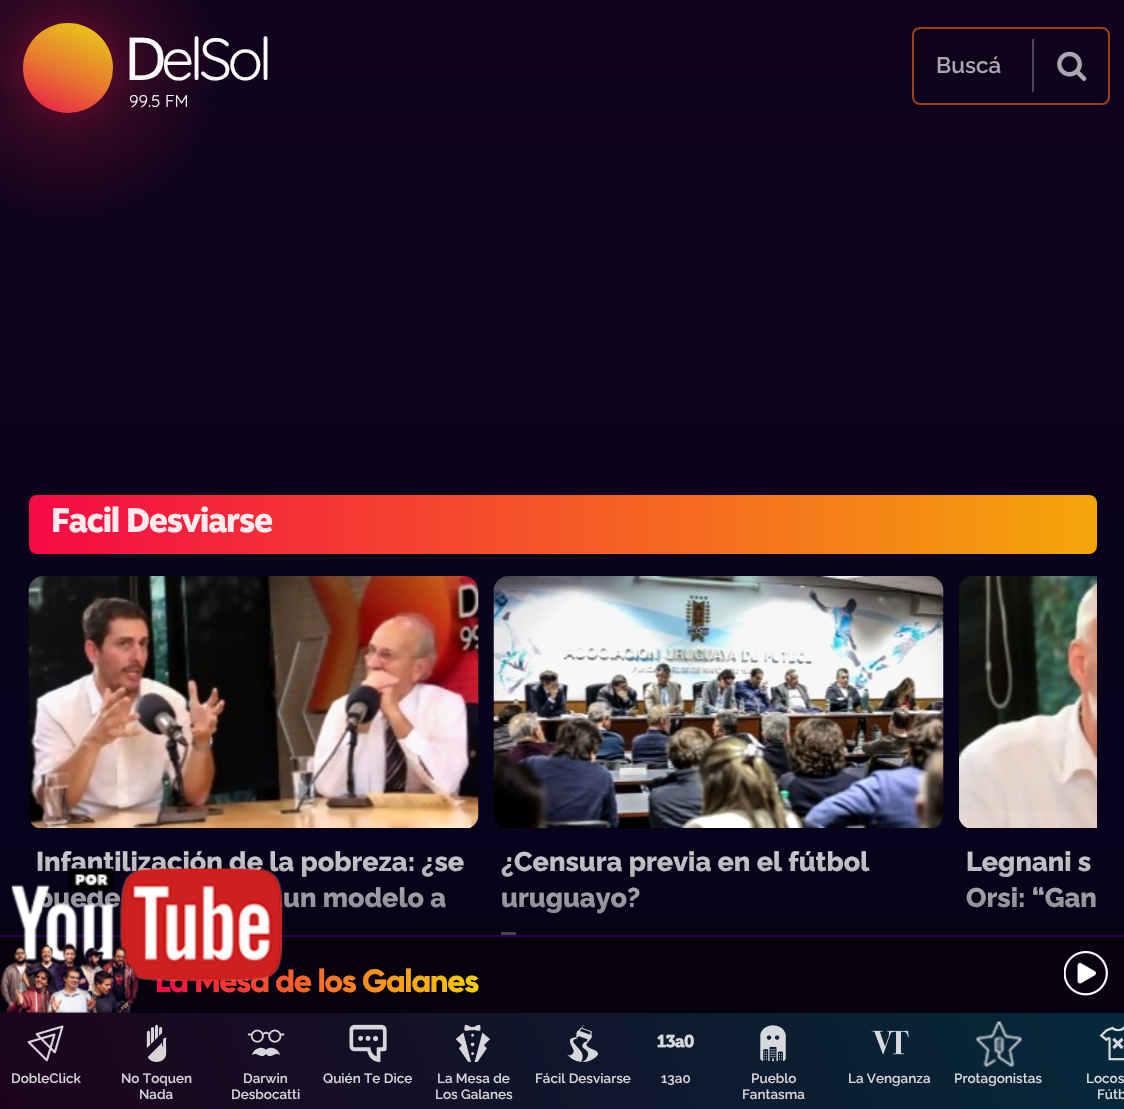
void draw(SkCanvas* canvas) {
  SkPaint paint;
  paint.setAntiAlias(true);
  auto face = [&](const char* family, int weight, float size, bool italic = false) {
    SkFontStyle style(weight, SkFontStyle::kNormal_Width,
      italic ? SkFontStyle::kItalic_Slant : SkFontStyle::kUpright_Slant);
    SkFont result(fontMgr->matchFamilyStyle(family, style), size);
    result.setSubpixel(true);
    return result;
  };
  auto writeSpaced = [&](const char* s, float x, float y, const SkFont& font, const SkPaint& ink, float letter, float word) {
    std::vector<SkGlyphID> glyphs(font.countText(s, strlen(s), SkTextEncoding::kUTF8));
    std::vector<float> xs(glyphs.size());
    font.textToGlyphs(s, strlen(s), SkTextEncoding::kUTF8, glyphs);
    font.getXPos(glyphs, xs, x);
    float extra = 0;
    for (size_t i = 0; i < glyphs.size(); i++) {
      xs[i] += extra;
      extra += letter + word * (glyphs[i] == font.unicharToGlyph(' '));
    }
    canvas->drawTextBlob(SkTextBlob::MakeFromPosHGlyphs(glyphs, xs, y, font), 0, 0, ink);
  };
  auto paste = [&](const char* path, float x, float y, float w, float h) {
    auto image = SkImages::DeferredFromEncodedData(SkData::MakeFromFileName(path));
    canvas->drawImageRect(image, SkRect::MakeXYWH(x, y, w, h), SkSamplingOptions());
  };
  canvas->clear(0xff03031c);
  paint.setColor(0xff0f031c);
  canvas->drawRect(SkRect::MakeXYWH(0, 0, 1124, 75), paint);
  {
    const SkColor colors[] = {0x000f031c, 0xff0f031c};
    const float stops[] = {0, 1};
    const SkPoint ends[] = {{563, 150}, {563, 75}};
    paint.setShader(SkGradientShader::MakeLinear(ends, colors, stops, 2, SkTileMode::kClamp));
    paint.setAlpha(255);
  }
  canvas->drawRect(SkRect::MakeXYWH(0, 75, 1124, 30), paint);
  {
    const SkColor colors[] = {0xff0f031c, 0xff03031c, 0xff03031c};
    const float stops[] = {0, 0.5f, 1};
    const SkPoint ends[] = {{562, 105}, {563, 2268}};
    paint.setShader(SkGradientShader::MakeLinear(ends, colors, stops, 3, SkTileMode::kClamp));
    paint.setAlpha(255);
  }
  canvas->drawRect(SkRect::MakeXYWH(0, 105, 1124, 830), paint);
  {
    const SkColor colors[] = {0x8fe8154a, 0x4f7a112f, 0x007a112f};
    const float stops[] = {0, 0.45f, 1};
    paint.setShader(SkGradientShader::MakeRadial({68, 68}, 158, colors, stops, 3, SkTileMode::kClamp));
    paint.setAlpha(255);
  }
  canvas->drawRect(SkRect::MakeXYWH(0, 0, 220, 220), paint);
  {
    const SkColor colors[] = {0xffe8154a, 0xffe87630, 0xffe8d615};
    const float stops[] = {0, 0.45f, 1};
    const SkPoint ends[] = {{44, 122}, {91, 13}};
    paint.setShader(SkGradientShader::MakeLinear(ends, colors, stops, 3, SkTileMode::kClamp));
    paint.setAlpha(255);
  }
  canvas->drawCircle(68, 68, 45, paint);
  paint.setStroke(true);
  paint.setStrokeWidth(2);
  paint.setShader(nullptr);
  paint.setColor(0xa6e86215);
  canvas->drawRoundRect(SkRect::MakeXYWH(913, 28, 196, 76), 7, 7, paint);
  paint.setStroke(false);
  paint.setColor(0x42ffffff);
  canvas->drawRect(SkRect::MakeXYWH(1032, 39, 2, 53), paint);
  paste("img/1.png", 1057, 51, 30, 30);
  {
    const SkColor colors[] = {0xfff50a45, 0xfff5a60a};
    const float stops[] = {0, 1};
    const SkPoint ends[] = {{29, 524}, {1097, 524}};
    paint.setShader(SkGradientShader::MakeLinear(ends, colors, stops, 2, SkTileMode::kClamp));
    paint.setAlpha(255);
  }
  canvas->drawRoundRect(SkRect::MakeXYWH(29, 495, 1068, 59), 8, 8, paint);
  paste("img/2.png", 28, 576, 451, 252);
  {
    const SkColor colors[] = {0x0a000000, 0x00000000};
    const float stops[] = {0, 1};
    const SkPoint ends[] = {{253, 576}, {254, 1086}};
    paint.setShader(SkGradientShader::MakeLinear(ends, colors, stops, 2, SkTileMode::kClamp));
    paint.setAlpha(255);
  }
  canvas->drawRect(SkRect::MakeXYWH(29, 576, 450, 235), paint);
  paste("img/3.png", 493, 576, 451, 252);
  {
    const SkColor colors[] = {0x0a000000, 0x00000000};
    const float stops[] = {0, 1};
    const SkPoint ends[] = {{719, 576}, {719, 1086}};
    paint.setShader(SkGradientShader::MakeLinear(ends, colors, stops, 2, SkTileMode::kClamp));
    paint.setAlpha(255);
  }
  canvas->drawRect(SkRect::MakeXYWH(494, 576, 450, 235), paint);
  paint.setShader(nullptr);
  paint.setColor(0xff858490);
  canvas->drawRect(SkRect::MakeXYWH(501, 932, 15, 3), paint);
  paste("img/4.png", 959, 576, 138, 252);
  {
    const SkColor colors[] = {0x0a000000, 0x00000000};
    const float stops[] = {0, 1};
    const SkPoint ends[] = {{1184, 576}, {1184, 1086}};
    paint.setShader(SkGradientShader::MakeLinear(ends, colors, stops, 2, SkTileMode::kClamp));
    paint.setAlpha(255);
  }
  canvas->drawRect(SkRect::MakeXYWH(959, 576, 138, 235), paint);
  paint.setShader(nullptr);
  paint.setColor(0xff08010f);
  canvas->drawRect(SkRect::MakeXYWH(0, 937, 1124, 76), paint);
  paint.setColor(0xff28044f);
  canvas->drawRect(SkRect::MakeXYWH(0, 935, 1124, 2), paint);
  paste("img/7.png", 1064, 951, 44, 45);
  {
    const SkColor colors[] = {0xff1c031c, 0xff05293b};
    const float stops[] = {0, 1};
    const SkPoint ends[] = {{68, 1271}, {1057, 851}};
    paint.setShader(SkGradientShader::MakeLinear(ends, colors, stops, 2, SkTileMode::kClamp));
    paint.setAlpha(255);
  }
  canvas->drawRect(SkRect::MakeXYWH(0, 1013, 1124, 96), paint);
  paste("img/8.png", 27, 1025, 37, 37);
  paste("img/9.png", 146, 1024, 21, 38);
  paste("img/10.png", 247, 1029, 38, 28);
  paste("img/11.png", 349, 1024, 38, 38);
  paste("img/12.png", 455, 1024, 35, 38);
  paste("img/13.png", 567, 1025, 31, 37);
  paste("img/14.png", 657, 1034, 37, 14);
  paste("img/15.png", 760, 1025, 26, 37);
  paste("img/16.png", 871, 1030, 38, 25);
  paste("img/17.png", 976, 1021, 46, 46);
  paste("img/18.png", 1099, 1026, 25, 35);
  auto f0 = face("Noto Sans", 400, 59);
  paint.setShader(nullptr);
  paint.setColor(0xfff9f8f8);
  writeSpaced("D", 124, 80, f0, paint, -4.5f, 0);
  auto f1 = face("Quicksand", 400, 59);
  writeSpaced("elSol", 161, 80, f1, paint, -4.5f, 0);
  auto f2 = face("Quicksand", 400, 17);
  canvas->drawString("99.5 FM", 129, 107, f2, paint);
  auto f3 = face("Raleway", 600, 22.5f);
  paint.setColor(0xffaaa6af);
  canvas->drawString("Buscá", 936, 73, f3, paint);
  auto f4 = face("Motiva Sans", 800, 33.75f);
  paint.setColor(0xfffeebee);
  writeSpaced("Facil Desviarse", 51, 532, f4, paint, -1.5f, 0);
  auto f5 = face("Raleway", 800, 27);
  paint.setColor(0xffe9e8eb);
  {
    const struct { const char* s; float x, y; } items[] = {
      {"Infantilización de la pobreza: ¿se", 36, 871},
      {"puede", 36, 907},
      {"un modelo a", 283, 907},
      {"¿Censura previa en el fútbol", 501, 871},
      {"uruguayo?", 501, 907},
      {"Legnani s", 966, 871},
      {"Orsi: “Gan", 966, 907},
    };
    for (auto [s, x, y] : items) {
      canvas->drawString(s, x, y, f5, paint);
    }
  }
  {
    const SkColor colors[] = {0x0008010f, 0x8208010f};
    const float stops[] = {0, 1};
    const SkPoint ends[] = {{563, 824}, {563, 935}};
    paint.setShader(SkGradientShader::MakeLinear(ends, colors, stops, 2, SkTileMode::kClamp));
    paint.setAlpha(255);
  }
  canvas->drawRect(SkRect::MakeXYWH(0, 851, 1124, 84), paint);
  auto f6 = face("Gilroy", 800, 32.25f);
  {
    const SkColor colors[] = {0xfff50a45, 0xfff5ce0a};
    const float stops[] = {0, 1};
    const SkPoint ends[] = {{155, 983}, {477, 983}};
    paint.setShader(SkGradientShader::MakeLinear(ends, colors, stops, 2, SkTileMode::kClamp));
    paint.setAlpha(255);
  }
  writeSpaced("La Mesa de los Galanes", 155, 992, f6, paint, -1.5f, 0);
  paste("img/5.png", 11, 868, 272, 113);
  paste("img/6.png", 0, 942, 139, 71);
  auto f7 = face("Raleway", 600, 13.5f);
  paint.setShader(nullptr);
  paint.setColor(0xffd7d4d9);
  {
    const struct { const char* s; float x, y; } items[] = {
      {"DobleClick", 11, 1083},
      {"No Toquen", 121, 1083},
      {"Nada", 139, 1099},
      {"Darwin", 243, 1083},
      {"Desbocatti", 231, 1099},
      {"Quién Te Dice", 323, 1083},
      {"La Mesa de", 437, 1083},
      {"Los Galanes", 435, 1099},
      {"Fácil Desviarse", 535, 1083},
      {"13a0", 661, 1083},
      {"Pueblo", 751, 1083},
      {"Fantasma", 742, 1099},
      {"La Venganza", 848, 1083},
      {"Protagonistas", 954, 1083},
    };
    for (auto [s, x, y] : items) {
      canvas->drawString(s, x, y, f7, paint);
    }
  }
  paint.setColor(0xffd5dadd);
  canvas->drawString("Locos", 1086, 1083, f7, paint);
  canvas->drawString("Fútb", 1097, 1099, f7, paint);
}
